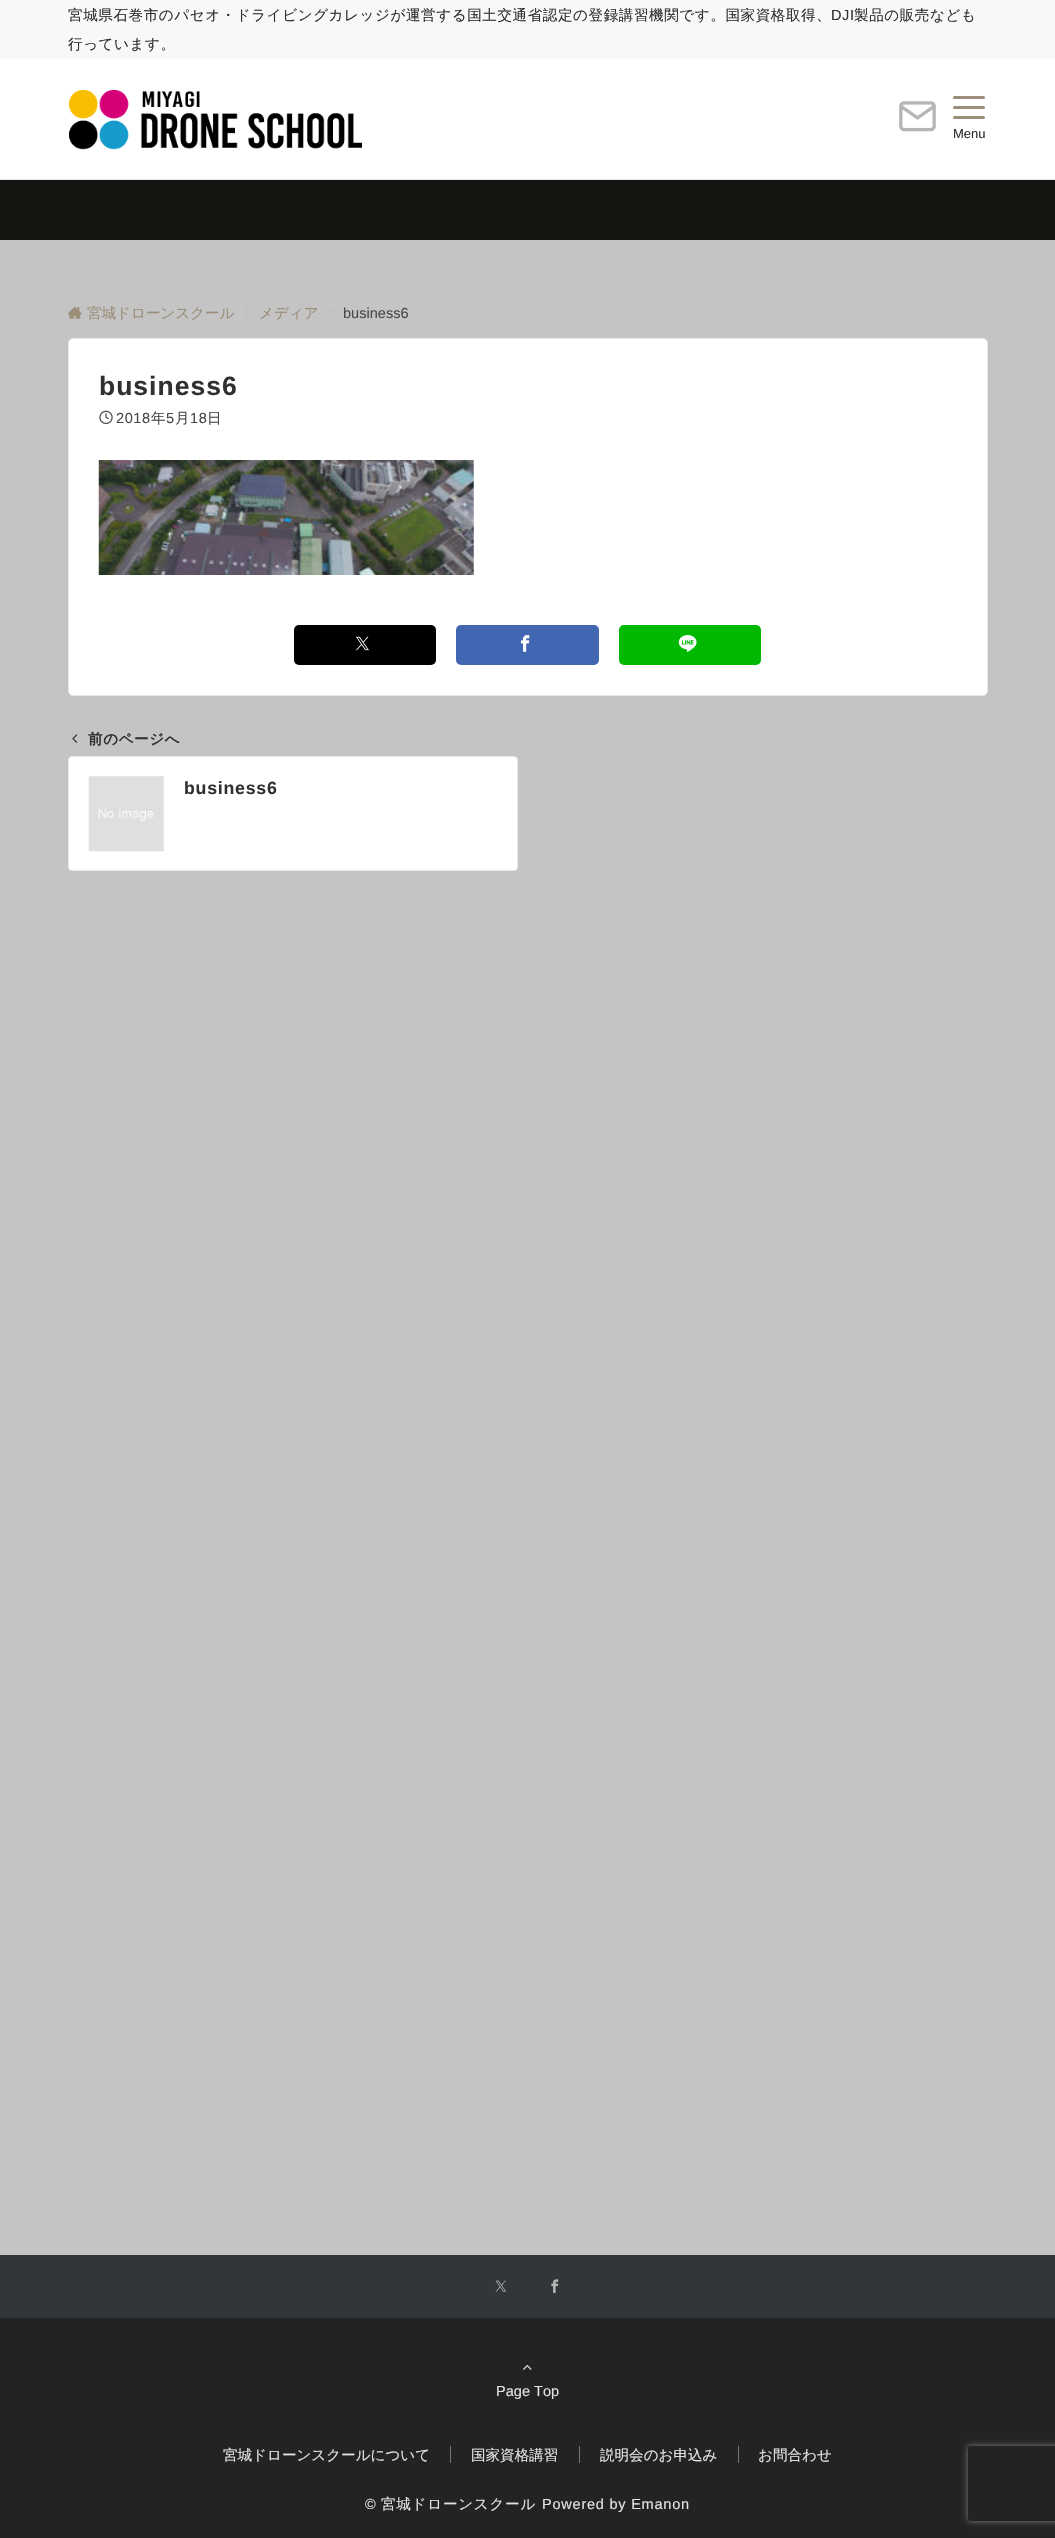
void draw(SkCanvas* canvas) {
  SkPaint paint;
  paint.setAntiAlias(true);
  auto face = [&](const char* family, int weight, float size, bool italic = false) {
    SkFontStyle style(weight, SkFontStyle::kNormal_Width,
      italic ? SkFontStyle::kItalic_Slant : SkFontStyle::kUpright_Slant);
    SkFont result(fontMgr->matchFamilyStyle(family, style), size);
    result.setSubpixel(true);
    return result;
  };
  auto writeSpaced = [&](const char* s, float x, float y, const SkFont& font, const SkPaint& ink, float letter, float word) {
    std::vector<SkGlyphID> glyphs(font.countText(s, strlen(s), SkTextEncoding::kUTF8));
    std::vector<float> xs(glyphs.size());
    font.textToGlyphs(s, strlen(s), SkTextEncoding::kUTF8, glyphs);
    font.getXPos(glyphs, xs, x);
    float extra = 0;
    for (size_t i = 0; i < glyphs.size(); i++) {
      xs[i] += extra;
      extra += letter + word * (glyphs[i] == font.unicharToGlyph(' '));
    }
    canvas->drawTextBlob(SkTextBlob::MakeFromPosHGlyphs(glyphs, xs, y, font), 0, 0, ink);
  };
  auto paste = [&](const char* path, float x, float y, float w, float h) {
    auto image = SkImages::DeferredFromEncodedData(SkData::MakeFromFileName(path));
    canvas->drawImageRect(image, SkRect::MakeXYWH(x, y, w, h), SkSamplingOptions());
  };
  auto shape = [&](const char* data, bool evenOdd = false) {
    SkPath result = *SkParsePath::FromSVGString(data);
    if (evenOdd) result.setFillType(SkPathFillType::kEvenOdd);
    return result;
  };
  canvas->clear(0xffc4c4c4);
  {
    const struct { float x, y, w, h; SkColor color; } items[] = {
      {0, 0, 1055, 59, 0xfff8f8f8},
      {0, 59, 1055, 120, 0xffffffff},
      {0, 179, 1055, 1, 0xffe6e6e6},
    };
    for (auto [x, y, w, h, color] : items) {
      paint.setColor(color);
      canvas->drawRect(SkRect::MakeXYWH(x, y, w, h), paint);
    }
  }
  paste("img/1.png", 69, 90, 293, 60);
  paste("img/2.png", 899, 101, 37, 31);
  paint.setColor(0xff9b8d77);
  canvas->drawRoundRect(SkRect::MakeXYWH(953, 96, 32, 3), 1.5f, 1.5f, paint);
  canvas->drawRoundRect(SkRect::MakeXYWH(953, 106, 32, 3), 1.5f, 1.5f, paint);
  canvas->drawRoundRect(SkRect::MakeXYWH(953, 116, 32, 3), 1.5f, 1.5f, paint);
  paint.setColor(0xff161410);
  canvas->drawRect(SkRect::MakeXYWH(0, 180, 1055, 60), paint);
  paste("img/3.png", 68, 306, 14, 13);
  paste("img/4.png", 245, 308, 5, 9);
  paste("img/5.png", 329, 308, 4, 9);
  paint.setColor(0xffffffff);
  canvas->drawRoundRect(SkRect::MakeXYWH(68.5f, 338.5f, 919, 357), 4.5f, 4.5f, paint);
  paint.setStroke(true);
  paint.setStrokeWidth(1);
  paint.setColor(0xffe5e7e8);
  canvas->drawRoundRect(SkRect::MakeXYWH(68.5f, 338.5f, 919, 357), 4.5f, 4.5f, paint);
  paste("img/6.png", 99, 410, 14, 14);
  paste("img/7.png", 98, 460, 376, 115);
  paint.setStroke(false);
  paint.setColor(0xff000000);
  canvas->drawRoundRect(SkRect::MakeXYWH(294, 625, 142, 40), 5, 5, paint);
  paste("img/8.png", 356, 636, 13, 15);
  paint.setColor(0xff4267b2);
  canvas->drawRoundRect(SkRect::MakeXYWH(456, 625, 143, 40), 5, 5, paint);
  paste("img/9.png", 520, 635, 10, 17);
  paint.setColor(0xff00b900);
  canvas->drawRoundRect(SkRect::MakeXYWH(619, 625, 142, 40), 5, 5, paint);
  paste("img/10.png", 678, 635, 19, 17);
  paint.setColor(0xffffffff);
  canvas->drawRoundRect(SkRect::MakeXYWH(68.5f, 756.5f, 449, 114), 3.5f, 3.5f, paint);
  paint.setStroke(true);
  paint.setColor(0xffe5e7e8);
  canvas->drawRoundRect(SkRect::MakeXYWH(68.5f, 756.5f, 449, 114), 3.5f, 3.5f, paint);
  paste("img/11.png", 72, 734, 6, 9);
  paste("img/12.png", 88, 776, 76, 76);
  paint.setStroke(false);
  paint.setColor(0xff232323);
  canvas->drawRect(SkRect::MakeXYWH(0, 2318, 1055, 220), paint);
  paint.setColor(0xff323638);
  canvas->drawRect(SkRect::MakeXYWH(0, 2255, 1055, 63), paint);
  paste("img/13.png", 495, 2280, 11, 12);
  paste("img/14.png", 551, 2279, 8, 14);
  paste("img/15.png", 523, 2365, 9, 5);
  {
    const struct { float x, y, w, h; SkColor color; } items[] = {
      {450, 2446, 1, 17, 0xff757575},
      {579, 2446, 1, 17, 0xff757575},
      {738, 2446, 1, 17, 0xff757575},
    };
    for (auto [x, y, w, h, color] : items) {
      paint.setColor(color);
      canvas->drawRect(SkRect::MakeXYWH(x, y, w, h), paint);
    }
  }
  canvas->save();
  canvas->clipPath(shape("M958 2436H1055V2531H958ZM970.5 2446H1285.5C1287 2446 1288 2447 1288 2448.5V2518.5C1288 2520 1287 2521 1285.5 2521H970.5C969 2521 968 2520 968 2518.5V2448.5C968 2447 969 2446 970.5 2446Z", true), true);
  paint.setColor(0xff808080);
  paint.setMaskFilter(SkMaskFilter::MakeBlur(kNormal_SkBlurStyle, 3));
  canvas->drawRoundRect(SkRect::MakeXYWH(968, 2446, 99, 75), 2.5f, 2.5f, paint);
  paint.setMaskFilter(nullptr);
  canvas->restore();
  auto f0 = face("WenQuanYi Zen Hei", 500, 14.55f);
  paint.setColor(0xff303030);
  writeSpaced("宮城県石巻市のパセオ・ドライビングカレッジが運営する国土交通省認定の登録講習機関です。国家資格取得、", 68, 20, f0, paint, 0.58f, 0);
  auto f1 = face("Liberation Sans", 400, 14.55f);
  writeSpaced("DJI", 831, 20, f1, paint, 0.58f, 0);
  writeSpaced("製品の販売なども", 854, 20, f0, paint, 0.58f, 0);
  writeSpaced("行っています。", 68, 49, f0, paint, 0.58f, 0);
  auto f2 = face("Liberation Sans", 400, 13);
  canvas->drawString("Menu", 953, 138, f2, paint);
  paint.setColor(0xff9b8d77);
  canvas->drawString("宮城ドローンスクール", 87, 318, f0, paint);
  canvas->drawString("メディア", 259, 318, f0, paint);
  paint.setColor(0xff484848);
  canvas->drawString("business6", 343, 318, f1, paint);
  auto f3 = face("Liberation Sans", 700, 26.5f);
  paint.setColor(0xff303030);
  writeSpaced("business6", 99, 395, f3, paint, 1, 0);
  paint.setColor(0xff484848);
  writeSpaced("2018", 116, 423, f1, paint, 0.58f, 0);
  writeSpaced("年", 151, 423, f0, paint, 0.58f, 0);
  writeSpaced("5", 166, 423, f1, paint, 0.58f, 0);
  writeSpaced("月", 175, 423, f0, paint, 0.58f, 0);
  writeSpaced("18", 190, 423, f1, paint, 0.58f, 0);
  writeSpaced("日", 207, 423, f0, paint, 0.58f, 0);
  auto f4 = face("WenQuanYi Zen Hei", 700, 14.55f);
  paint.setColor(0xff303030);
  writeSpaced("前のページへ", 88, 744, f4, paint, 0.58f, 0);
  auto f5 = face("Liberation Sans", 700, 17.75f);
  writeSpaced("business6", 184, 794, f5, paint, 0.75f, 0);
  paint.setColor(0xffe2e2e2);
  canvas->drawString("Page Top", 496, 2396, f1, paint);
  {
    const struct { const char* s; float x, y; } items[] = {
      {"宮城ドローンスクールについて", 223, 2460},
      {"国家資格講習", 471, 2460},
      {"説明会のお申込み", 600, 2460},
      {"お問合わせ", 758, 2460},
    };
    for (auto [s, x, y] : items) {
      canvas->drawString(s, x, y, f0, paint);
    }
  }
  writeSpaced("©", 365, 2509, f1, paint, 0.75f, 0);
  writeSpaced("宮城ドローンスクール", 381, 2509, f0, paint, 0.75f, 0);
  writeSpaced("Powered by Emanon", 542, 2509, f1, paint, 0.75f, 0);
}
